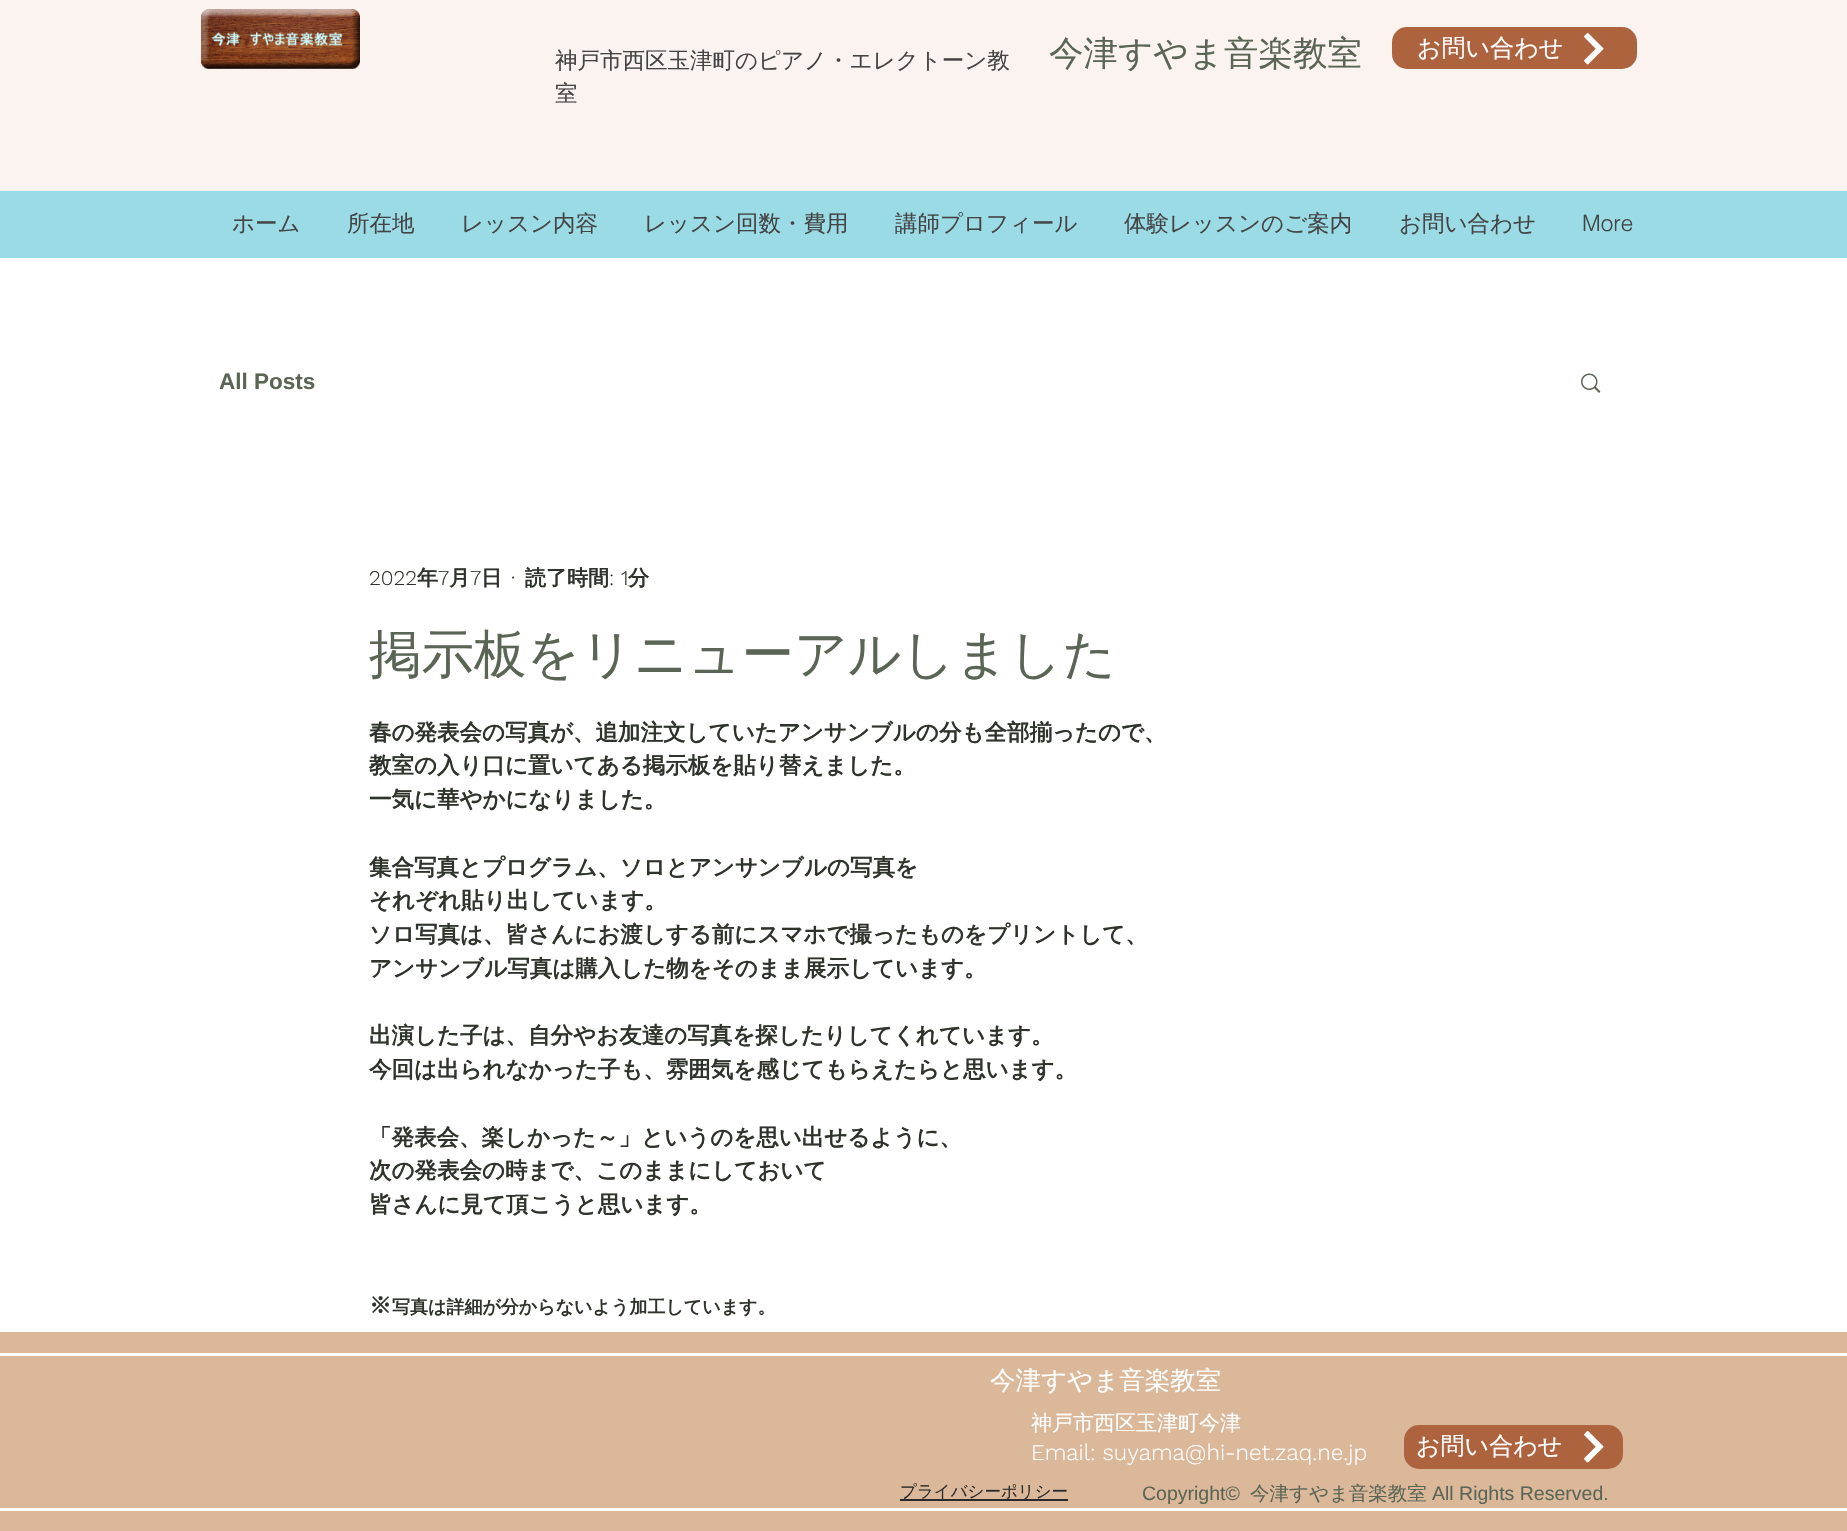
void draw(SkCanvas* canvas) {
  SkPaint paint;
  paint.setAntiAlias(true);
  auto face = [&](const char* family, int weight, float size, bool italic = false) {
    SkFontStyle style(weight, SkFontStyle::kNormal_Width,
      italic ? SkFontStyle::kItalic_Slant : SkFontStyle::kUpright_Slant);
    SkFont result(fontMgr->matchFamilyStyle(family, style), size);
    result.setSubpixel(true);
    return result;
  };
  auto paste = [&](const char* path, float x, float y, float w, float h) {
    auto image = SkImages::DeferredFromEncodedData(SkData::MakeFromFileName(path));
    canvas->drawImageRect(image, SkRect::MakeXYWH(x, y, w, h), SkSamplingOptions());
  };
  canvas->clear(0xffffffff);
  paint.setColor(0xfffaf3f0);
  canvas->drawRect(SkRect::MakeXYWH(0, 0, 1847, 191), paint);
  paste("img/1.png", 201, 9, 159, 60);
  paint.setColor(0xffae633f);
  canvas->drawRoundRect(SkRect::MakeXYWH(1392, 27, 245, 42), 15, 15, paint);
  paste("img/2.png", 1584, 33, 20, 32);
  paint.setColor(0xff9bdbe6);
  canvas->drawRect(SkRect::MakeXYWH(0, 191, 1847, 67), paint);
  paste("img/3.png", 1581, 373, 20, 20);
  {
    const struct { float x, y, w, h; SkColor color; } items[] = {
      {0, 1332, 1847, 199, 0xffdbb89a},
      {0, 1353, 1847, 3, 0xffffffff},
      {0, 1508, 1847, 3, 0xffffffff},
    };
    for (auto [x, y, w, h, color] : items) {
      paint.setColor(color);
      canvas->drawRect(SkRect::MakeXYWH(x, y, w, h), paint);
    }
  }
  paint.setColor(0xffae633f);
  canvas->drawRoundRect(SkRect::MakeXYWH(1404, 1425, 219, 44), 15, 15, paint);
  paste("img/2.png", 1584, 1431, 20, 32);
  paint.setColor(0xff2a2a2a);
  canvas->drawRect(SkRect::MakeXYWH(900, 1499, 168, 2), paint);
  auto f0 = face("WenQuanYi Zen Hei", 500, 22.5f);
  paint.setColor(0xff444444);
  canvas->drawString("神戸市西区玉津町のピアノ・エレクトーン教", 555, 68, f0, paint);
  canvas->drawString("室", 555, 101, f0, paint);
  auto f1 = face("WenQuanYi Zen Hei", 500, 34.5f);
  paint.setColor(0xff5b6555);
  canvas->drawString("今津すやま音楽教室", 1049, 65, f1, paint);
  auto f2 = face("WenQuanYi Zen Hei", 500, 24);
  paint.setColor(0xffffffff);
  canvas->drawString("お問い合わせ", 1417, 56, f2, paint);
  paint.setColor(0xff444444);
  {
    const struct { const char* s; float x, y; } items[] = {
      {"ホーム", 232, 231},
      {"所在地", 347, 231},
      {"レッスン内容", 461, 231},
      {"レッスン回数・費用", 644, 231},
      {"講師プロフィール", 895, 231},
      {"体験レッスンのご案内", 1124, 231},
      {"お問い合わせ", 1399, 231},
    };
    for (auto [s, x, y] : items) {
      canvas->drawString(s, x, y, f0, paint);
    }
  }
  auto f3 = face("helvetica", 300, 22.5f);
  canvas->drawString("More", 1582, 231, f3, paint);
  auto f4 = face("Liberation Sans", 700, 22.5f);
  paint.setColor(0xff5b6555);
  canvas->drawString("All Posts", 219, 389, f4, paint);
  auto f5 = face("Work Sans", 300, 21);
  paint.setColor(0xff2e332b);
  canvas->drawString("2022", 369, 585, f5, paint);
  auto f6 = face("WenQuanYi Zen Hei", 700, 21);
  canvas->drawString("年", 417, 585, f6, paint);
  canvas->drawString("7", 438, 585, f5, paint);
  canvas->drawString("月", 449, 585, f6, paint);
  canvas->drawString("7", 470, 585, f5, paint);
  canvas->drawString("日", 481, 585, f6, paint);
  canvas->drawString("·", 511, 585, f5, paint);
  canvas->drawString("読了時間", 525, 585, f6, paint);
  canvas->drawString(": 1", 609, 585, f5, paint);
  canvas->drawString("分", 628, 585, f6, paint);
  auto f7 = face("WenQuanYi Zen Hei", 500, 52.5f);
  paint.setColor(0xff5b6555);
  canvas->drawString("掲示板をリニューアルしました", 369, 672, f7, paint);
  auto f8 = face("WenQuanYi Zen Hei", 700, 22.5f);
  paint.setColor(0xff2e332b);
  {
    const struct { const char* s; float x, y; } items[] = {
      {"春の発表会の写真が、追加注文していたアンサンブルの分も全部揃ったので、", 369, 740},
      {"教室の入り口に置いてある掲示板を貼り替えました。", 369, 773},
      {"一気に華やかになりました。", 369, 807},
      {"集合写真とプログラム、ソロとアンサンブルの写真を", 369, 875},
      {"それぞれ貼り出しています。", 369, 908},
      {"ソロ写真は、皆さんにお渡しする前にスマホで撮ったものをプリントして、", 369, 942},
      {"アンサンブル写真は購入した物をそのまま展示しています。", 369, 976},
      {"出演した子は、自分やお友達の写真を探したりしてくれています。", 369, 1043},
      {"今回は出られなかった子も、雰囲気を感じてもらえたらと思います。", 369, 1077},
      {"「発表会、楽しかった～」というのを思い出せるように、", 369, 1145},
      {"次の発表会の時まで、このままにしておいて", 369, 1178},
      {"皆さんに見て頂こうと思います。", 369, 1212},
      {"※", 369, 1313},
    };
    for (auto [s, x, y] : items) {
      canvas->drawString(s, x, y, f8, paint);
    }
  }
  auto f9 = face("WenQuanYi Zen Hei", 700, 18);
  canvas->drawString("写真は詳細が分からないよう加工しています。", 392, 1313, f9, paint);
  auto f10 = face("WenQuanYi Zen Hei", 500, 25.5f);
  paint.setColor(0xffffffff);
  canvas->drawString("今津すやま音楽教室", 990, 1389, f10, paint);
  auto f11 = face("WenQuanYi Zen Hei", 500, 21);
  canvas->drawString("神戸市西区玉津町今津", 1031, 1430, f11, paint);
  auto f12 = face("Work Sans", 300, 22.5f);
  canvas->drawString("Email: suyama@hi-net.zaq.ne.jp", 1031, 1460, f12, paint);
  canvas->drawString("お問い合わせ", 1416, 1454, f2, paint);
  auto f13 = face("WenQuanYi Zen Hei", 500, 16.5f);
  paint.setColor(0xff2a2a2a);
  canvas->drawString("プライバシーポリシー", 900, 1497, f13, paint);
  auto f14 = face("Liberation Sans", 400, 19.5f);
  paint.setColor(0xff5b6555);
  canvas->drawString("Copyright©", 1142, 1500, f14, paint);
  auto f15 = face("WenQuanYi Zen Hei", 500, 19.5f);
  canvas->drawString("今津すやま音楽教室", 1250, 1500, f15, paint);
  canvas->drawString("All Rights Reserved.", 1432, 1500, f14, paint);
}
